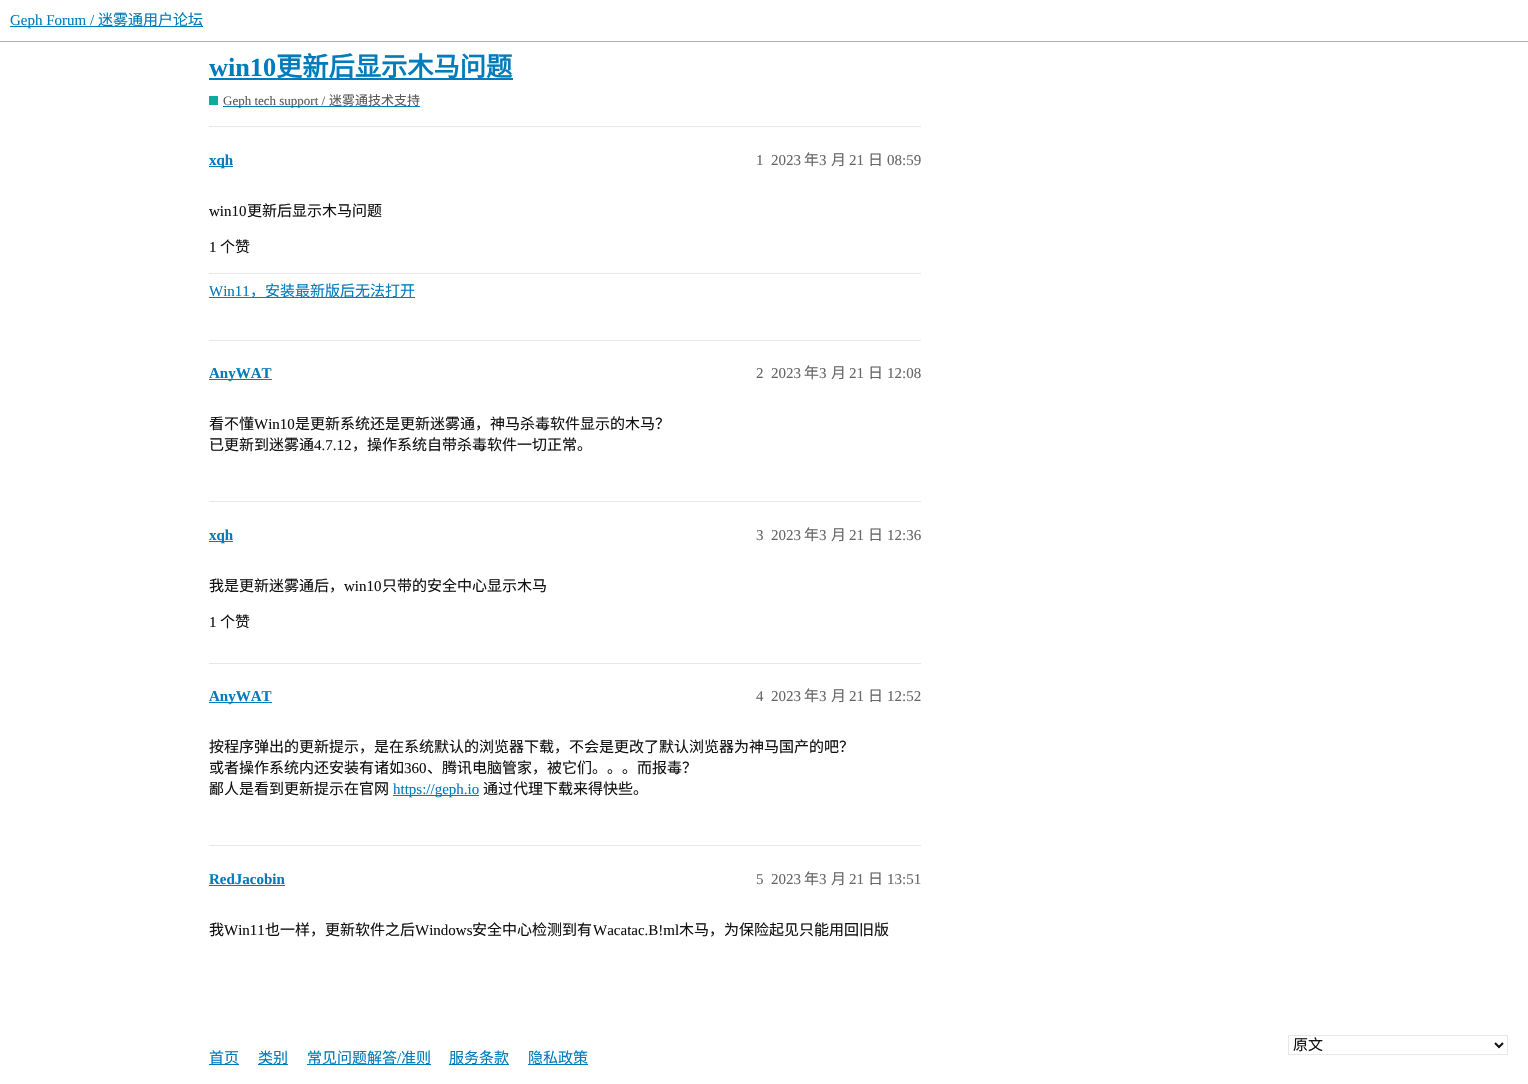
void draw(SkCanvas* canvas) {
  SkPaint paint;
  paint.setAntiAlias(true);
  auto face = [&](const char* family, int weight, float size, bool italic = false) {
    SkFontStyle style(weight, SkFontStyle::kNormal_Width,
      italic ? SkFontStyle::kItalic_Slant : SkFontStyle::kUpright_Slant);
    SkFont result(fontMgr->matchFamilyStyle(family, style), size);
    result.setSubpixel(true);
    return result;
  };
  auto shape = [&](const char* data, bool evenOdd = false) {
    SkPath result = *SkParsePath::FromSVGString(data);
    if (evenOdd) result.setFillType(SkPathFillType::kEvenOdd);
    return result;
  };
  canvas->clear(0xffffffff);
  {
    const struct { float x, y, w, h; SkColor color; } items[] = {
      {0, 41, 1528, 1, 0xffadadad},
      {10, 26, 193, 1, 0xff007bbb},
      {209, 78, 304, 2, 0xff007bbb},
      {209, 96, 9, 9, 0xff12a89d},
      {223, 106, 197, 1, 0xff007bbb},
      {209, 126, 712, 1, 0xffe7e7e7},
      {209, 166, 24, 1, 0xff007bbb},
      {209, 273, 712, 1, 0xffe7e7e7},
      {209, 297, 206, 1, 0xff007bbb},
      {209, 340, 712, 1, 0xffe7e7e7},
      {209, 379, 63, 1, 0xff007bbb},
      {209, 501, 712, 1, 0xffe7e7e7},
      {209, 541, 24, 1, 0xff007bbb},
      {209, 663, 712, 1, 0xffe7e7e7},
      {209, 702, 63, 1, 0xff007bbb},
      {393, 795, 86, 1, 0xff007bbb},
      {209, 845, 712, 1, 0xffe7e7e7},
      {209, 885, 76, 1, 0xff007bbb},
    };
    for (auto [x, y, w, h, color] : items) {
      paint.setColor(color);
      canvas->drawRect(SkRect::MakeXYWH(x, y, w, h), paint);
    }
  }
  paint.setStroke(true);
  paint.setStrokeWidth(1);
  paint.setColor(0xffe7e7e7);
  canvas->drawRect(SkRect::MakeXYWH(1288.5f, 1035.5f, 219, 19), paint);
  paint.setStrokeWidth(2);
  paint.setColor(0xff111111);
  canvas->drawPath(shape("M1495 1043L1499 1047L1503 1043"), paint);
  paint.setStroke(false);
  {
    const struct { float x, y, w, h; SkColor color; } items[] = {
      {209, 1064, 30, 1, 0xff007bbb},
      {258, 1064, 30, 1, 0xff007bbb},
      {307, 1064, 124, 1, 0xff007bbb},
      {449, 1064, 60, 1, 0xff007bbb},
      {528, 1064, 60, 1, 0xff007bbb},
    };
    for (auto [x, y, w, h, color] : items) {
      paint.setColor(color);
      canvas->drawRect(SkRect::MakeXYWH(x, y, w, h), paint);
    }
  }
  auto f0 = face("Liberation Serif", 400, 15);
  canvas->drawString("Geph Forum /", 10, 25, f0, paint);
  auto f1 = face("Noto Sans CJK SC", 400, 15);
  canvas->drawString("迷雾通用户论坛", 98, 25, f1, paint);
  auto f2 = face("Liberation Serif", 700, 26.25f);
  canvas->drawString("win10", 209, 76, f2, paint);
  auto f3 = face("Noto Sans CJK SC", 700, 26.25f);
  canvas->drawString("更新后显示木马问题", 276, 76, f3, paint);
  auto f4 = face("Liberation Serif", 400, 13);
  paint.setColor(0xff585858);
  canvas->drawString("Geph tech support /", 223, 105, f4, paint);
  auto f5 = face("Noto Sans CJK SC", 400, 13);
  canvas->drawString("迷雾通技术支持", 329, 105, f5, paint);
  auto f6 = face("Liberation Serif", 700, 15);
  paint.setColor(0xff007bbb);
  canvas->drawString("xqh", 209, 165, f6, paint);
  paint.setColor(0xff666666);
  canvas->drawString("1", 756, 165, f0, paint);
  canvas->drawString("2023", 771, 165, f0, paint);
  canvas->drawString("年", 804, 165, f1, paint);
  canvas->drawString("3", 819, 165, f0, paint);
  canvas->drawString("月", 831, 165, f1, paint);
  canvas->drawString("21", 849, 165, f0, paint);
  canvas->drawString("日", 868, 165, f1, paint);
  canvas->drawString("08:59", 887, 165, f0, paint);
  paint.setColor(0xff111111);
  canvas->drawString("win10", 209, 216, f0, paint);
  canvas->drawString("更新后显示木马问题", 247, 216, f1, paint);
  canvas->drawString("1", 209, 252, f0, paint);
  canvas->drawString("个赞", 220, 252, f1, paint);
  paint.setColor(0xff007bbb);
  canvas->drawString("Win11", 209, 296, f0, paint);
  canvas->drawString("，安装最新版后无法打开", 250, 296, f1, paint);
  canvas->drawString("AnyWAT", 209, 378, f6, paint);
  paint.setColor(0xff666666);
  canvas->drawString("2", 756, 378, f0, paint);
  canvas->drawString("2023", 771, 378, f0, paint);
  canvas->drawString("年", 804, 378, f1, paint);
  canvas->drawString("3", 819, 378, f0, paint);
  canvas->drawString("月", 831, 378, f1, paint);
  canvas->drawString("21", 849, 378, f0, paint);
  canvas->drawString("日", 868, 378, f1, paint);
  canvas->drawString("12:08", 887, 378, f0, paint);
  paint.setColor(0xff111111);
  canvas->drawString("看不懂", 209, 429, f1, paint);
  canvas->drawString("Win10", 254, 429, f0, paint);
  canvas->drawString("是更新系统还是更新迷雾通，神马杀毒软件显示的木马？", 295, 429, f1, paint);
  canvas->drawString("已更新到迷雾通", 209, 450, f1, paint);
  canvas->drawString("4.7.12", 314, 450, f0, paint);
  canvas->drawString("，操作系统自带杀毒软件一切正常。", 352, 450, f1, paint);
  paint.setColor(0xff007bbb);
  canvas->drawString("xqh", 209, 540, f6, paint);
  paint.setColor(0xff666666);
  canvas->drawString("3", 756, 540, f0, paint);
  canvas->drawString("2023", 771, 540, f0, paint);
  canvas->drawString("年", 804, 540, f1, paint);
  canvas->drawString("3", 819, 540, f0, paint);
  canvas->drawString("月", 831, 540, f1, paint);
  canvas->drawString("21", 849, 540, f0, paint);
  canvas->drawString("日", 868, 540, f1, paint);
  canvas->drawString("12:36", 887, 540, f0, paint);
  paint.setColor(0xff111111);
  canvas->drawString("我是更新迷雾通后，", 209, 591, f1, paint);
  canvas->drawString("win10", 344, 591, f0, paint);
  canvas->drawString("只带的安全中心显示木马", 382, 591, f1, paint);
  canvas->drawString("1", 209, 627, f0, paint);
  canvas->drawString("个赞", 220, 627, f1, paint);
  paint.setColor(0xff007bbb);
  canvas->drawString("AnyWAT", 209, 701, f6, paint);
  paint.setColor(0xff666666);
  canvas->drawString("4", 756, 701, f0, paint);
  canvas->drawString("2023", 771, 701, f0, paint);
  canvas->drawString("年", 804, 701, f1, paint);
  canvas->drawString("3", 819, 701, f0, paint);
  canvas->drawString("月", 831, 701, f1, paint);
  canvas->drawString("21", 849, 701, f0, paint);
  canvas->drawString("日", 868, 701, f1, paint);
  canvas->drawString("12:52", 887, 701, f0, paint);
  paint.setColor(0xff111111);
  canvas->drawString("按程序弹出的更新提示，是在系统默认的浏览器下载，不会是更改了默认浏览器为神马国产的吧？", 209, 752, f1, paint);
  canvas->drawString("或者操作系统内还安装有诸如", 209, 773, f1, paint);
  canvas->drawString("360", 404, 773, f0, paint);
  canvas->drawString("、腾讯电脑管家，被它们。。。而报毒？", 427, 773, f1, paint);
  canvas->drawString("鄙人是看到更新提示在官网", 209, 794, f1, paint);
  paint.setColor(0xff007bbb);
  canvas->drawString("https://geph.io", 393, 794, f0, paint);
  paint.setColor(0xff111111);
  canvas->drawString("通过代理下载来得快些。", 483, 794, f1, paint);
  paint.setColor(0xff007bbb);
  canvas->drawString("RedJacobin", 209, 884, f6, paint);
  paint.setColor(0xff666666);
  canvas->drawString("5", 756, 884, f0, paint);
  canvas->drawString("2023", 771, 884, f0, paint);
  canvas->drawString("年", 804, 884, f1, paint);
  canvas->drawString("3", 819, 884, f0, paint);
  canvas->drawString("月", 831, 884, f1, paint);
  canvas->drawString("21", 849, 884, f0, paint);
  canvas->drawString("日", 868, 884, f1, paint);
  canvas->drawString("13:51", 887, 884, f0, paint);
  paint.setColor(0xff111111);
  canvas->drawString("我", 209, 935, f1, paint);
  canvas->drawString("Win11", 224, 935, f0, paint);
  canvas->drawString("也一样，更新软件之后", 265, 935, f1, paint);
  canvas->drawString("Windows", 415, 935, f0, paint);
  canvas->drawString("安全中心检测到有", 472, 935, f1, paint);
  canvas->drawString("Wacatac.B!ml", 593, 935, f0, paint);
  canvas->drawString("木马，为保险起见只能用回旧版", 679, 935, f1, paint);
  canvas->drawString("原文", 1293, 1050, f1, paint);
  paint.setColor(0xff007bbb);
  {
    const struct { const char* s; float x, y; } items[] = {
      {"首页", 209, 1063},
      {"类别", 258, 1063},
      {"常见问题解答", 307, 1063},
    };
    for (auto [s, x, y] : items) {
      canvas->drawString(s, x, y, f1, paint);
    }
  }
  canvas->drawString("/", 397, 1063, f0, paint);
  {
    const struct { const char* s; float x, y; } items[] = {
      {"准则", 401, 1063},
      {"服务条款", 449, 1063},
      {"隐私政策", 528, 1063},
    };
    for (auto [s, x, y] : items) {
      canvas->drawString(s, x, y, f1, paint);
    }
  }
}
